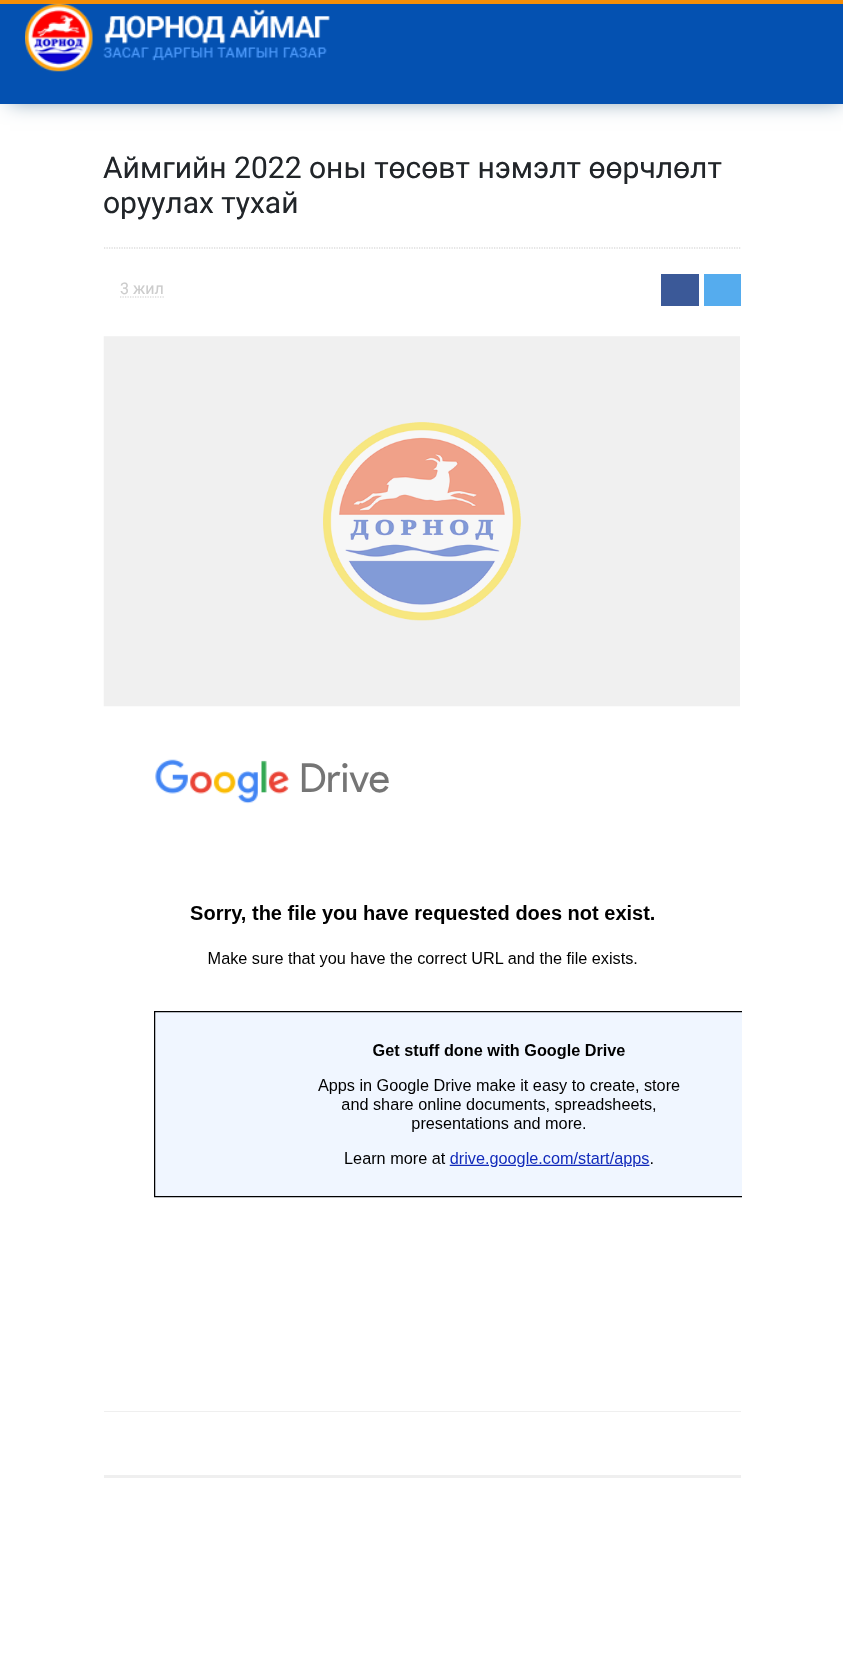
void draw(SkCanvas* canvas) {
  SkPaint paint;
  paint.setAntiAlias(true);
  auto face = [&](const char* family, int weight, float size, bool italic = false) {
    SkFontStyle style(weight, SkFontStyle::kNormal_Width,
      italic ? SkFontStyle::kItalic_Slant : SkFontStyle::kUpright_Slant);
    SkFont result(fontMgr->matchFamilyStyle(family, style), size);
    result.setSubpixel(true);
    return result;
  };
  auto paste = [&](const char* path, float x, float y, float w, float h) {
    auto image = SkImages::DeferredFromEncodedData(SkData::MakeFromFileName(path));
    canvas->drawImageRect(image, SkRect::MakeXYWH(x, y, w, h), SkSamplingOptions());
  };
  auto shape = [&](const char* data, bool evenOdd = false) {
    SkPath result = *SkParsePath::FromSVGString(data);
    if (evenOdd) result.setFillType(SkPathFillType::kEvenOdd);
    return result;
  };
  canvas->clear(0xffffffff);
  paint.setColor(0xff7494aa);
  paint.setMaskFilter(SkMaskFilter::MakeBlur(kNormal_SkBlurStyle, 10));
  canvas->drawRect(SkRect::MakeXYWH(10, 10, 831, 91), paint);
  paint.setMaskFilter(nullptr);
  paint.setColor(0xfff78e06);
  canvas->drawRect(SkRect::MakeXYWH(0, 0, 843, 4), paint);
  paint.setColor(0xff0451b1);
  canvas->drawRect(SkRect::MakeXYWH(0, 4, 843, 100), paint);
  paste("img/1.png", 25, 3, 305, 69);
  paint.setStroke(true);
  paint.setStrokeWidth(1.2f);
  paint.setColor(0xffcccccc);
  paint.setPathEffect(SkDashPathEffect::Make({{1.25f, 1.25f}}, 0));
  canvas->drawPath(shape("M104 248H741"), paint);
  paint.setPathEffect(nullptr);
  paint.setPathEffect(SkDashPathEffect::Make({{1.25f, 1.25f}}, 0));
  canvas->drawPath(shape("M120 297H164"), paint);
  paint.setPathEffect(nullptr);
  paint.setStroke(false);
  paint.setColor(0xff3b5998);
  canvas->drawRect(SkRect::MakeXYWH(661, 274, 38, 32), paint);
  paint.setColor(0xff55acee);
  canvas->drawRect(SkRect::MakeXYWH(704, 274, 37, 32), paint);
  paste("img/2.png", 103, 336, 637, 371);
  paste("img/3.png", 154, 759, 588, 439);
  paint.setColor(0xffefefef);
  canvas->drawRect(SkRect::MakeXYWH(104, 1411, 637, 1), paint);
  canvas->drawRect(SkRect::MakeXYWH(104, 1475, 637, 3), paint);
  auto f0 = face("Roboto", 400, 30);
  paint.setColor(0xff212529);
  canvas->drawString("Аймгийн 2022 оны төсөвт нэмэлт өөрчлөлт", 103, 178, f0, paint);
  canvas->drawString("оруулах тухай", 103, 213, f0, paint);
  auto f1 = face("Roboto", 400, 16);
  paint.setColor(0xffcccccc);
  canvas->drawString("3 жил", 120, 294, f1, paint);
}
